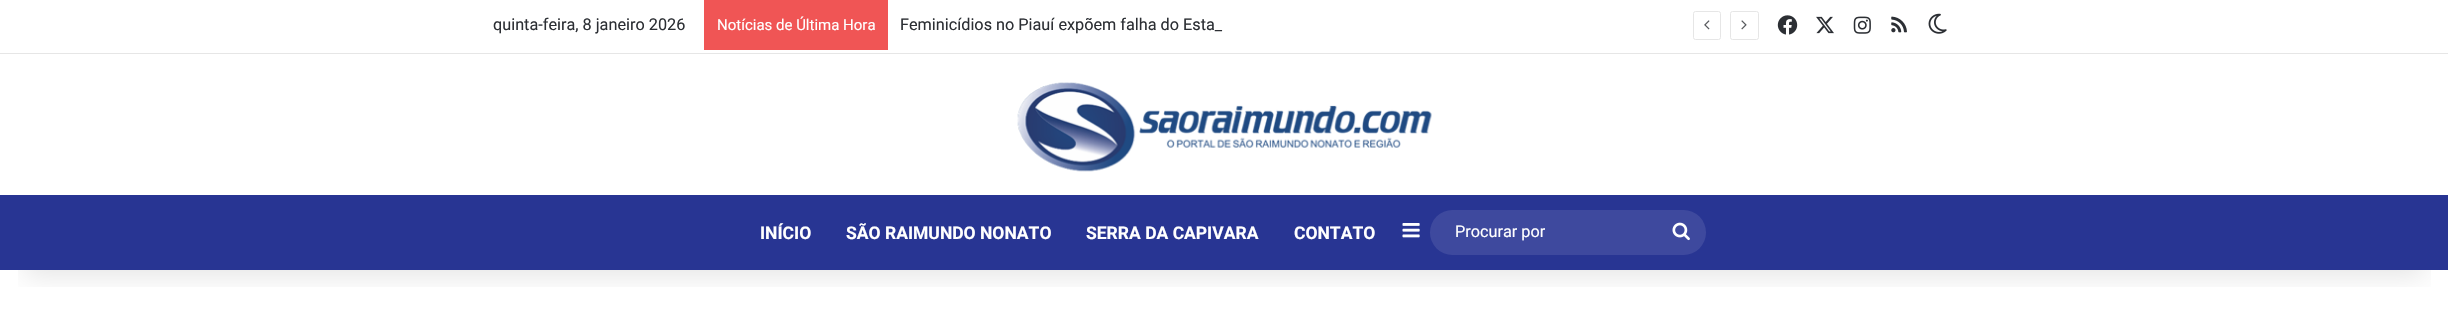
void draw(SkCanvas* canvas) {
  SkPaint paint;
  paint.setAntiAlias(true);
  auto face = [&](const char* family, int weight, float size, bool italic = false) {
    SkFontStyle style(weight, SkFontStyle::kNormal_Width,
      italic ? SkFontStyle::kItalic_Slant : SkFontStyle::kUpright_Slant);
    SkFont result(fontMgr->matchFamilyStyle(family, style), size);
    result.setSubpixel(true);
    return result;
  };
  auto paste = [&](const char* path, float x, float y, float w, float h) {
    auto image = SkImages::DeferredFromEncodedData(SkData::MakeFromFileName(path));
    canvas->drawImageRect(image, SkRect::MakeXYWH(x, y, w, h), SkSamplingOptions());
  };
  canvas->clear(0xffffffff);
  canvas->save();
  canvas->clipRect(SkRect::MakeXYWH(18, 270, 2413, 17));
  paint.setColor(0x1a000000);
  paint.setMaskFilter(SkMaskFilter::MakeBlur(kNormal_SkBlurStyle, 12.5f));
  canvas->drawRect(SkRect::MakeXYWH(25, 56, 2399, 220), paint);
  paint.setMaskFilter(nullptr);
  canvas->restore();
  paint.setColor(0xffe6e6e6);
  canvas->drawRect(SkRect::MakeXYWH(0, 53, 2448, 1), paint);
  paint.setColor(0xfff05555);
  canvas->drawRect(SkRect::MakeXYWH(704, 0, 184, 50), paint);
  paint.setStroke(true);
  paint.setStrokeWidth(1);
  paint.setColor(0xffe6e6e6);
  canvas->drawRoundRect(SkRect::MakeXYWH(1693.5f, 11.5f, 27, 28), 2, 2, paint);
  paste("img/1.png", 1704, 20, 6, 10);
  canvas->drawRoundRect(SkRect::MakeXYWH(1730.5f, 11.5f, 28, 28), 2, 2, paint);
  paste("img/2.png", 1741, 20, 6, 10);
  paste("img/3.png", 1777, 15, 21, 20);
  paste("img/4.png", 1816, 16, 18, 18);
  paste("img/5.png", 1853, 16, 18, 18);
  paste("img/6.png", 1891, 16, 16, 17);
  paste("img/7.png", 1928, 13, 19, 21);
  paste("img/8.png", 1017, 82, 415, 90);
  paint.setStroke(false);
  paint.setColor(0xff283593);
  canvas->drawRect(SkRect::MakeXYWH(0, 195, 2448, 75), paint);
  paste("img/9.png", 1402, 223, 18, 15);
  paint.setColor(0xff3e499e);
  canvas->drawRoundRect(SkRect::MakeXYWH(1430, 210, 276, 45), 22.5f, 22.5f, paint);
  paste("img/10.png", 1672, 222, 18, 19);
  auto f0 = face("Roboto", 400, 16.25f);
  paint.setColor(0xff2c2f34);
  canvas->drawString("quinta-feira, 8 janeiro 2026", 493, 30, f0, paint);
  auto f1 = face("Roboto", 400, 15);
  paint.setColor(0xffffffff);
  canvas->drawString("Notícias de Última Hora", 717, 30, f1, paint);
  paint.setColor(0xff2c2f34);
  canvas->drawString("Feminicídios no Piauí expõem falha do Esta_", 900, 30, f0, paint);
  paint.setColor(0xffffffff);
  canvas->drawRect(SkRect::MakeXYWH(1214, 29, 1, 1), paint);
  auto f2 = face("Roboto", 700, 17.5f);
  {
    const struct { const char* s; float x, y; } items[] = {
      {"INÍCIO", 760, 239},
      {"SÃO RAIMUNDO NONATO", 846, 239},
      {"SERRA DA CAPIVARA", 1086, 239},
      {"CONTATO", 1294, 239},
    };
    for (auto [s, x, y] : items) {
      canvas->drawString(s, x, y, f2, paint);
    }
  }
  canvas->drawString("Procurar por", 1455, 237, f0, paint);
}
